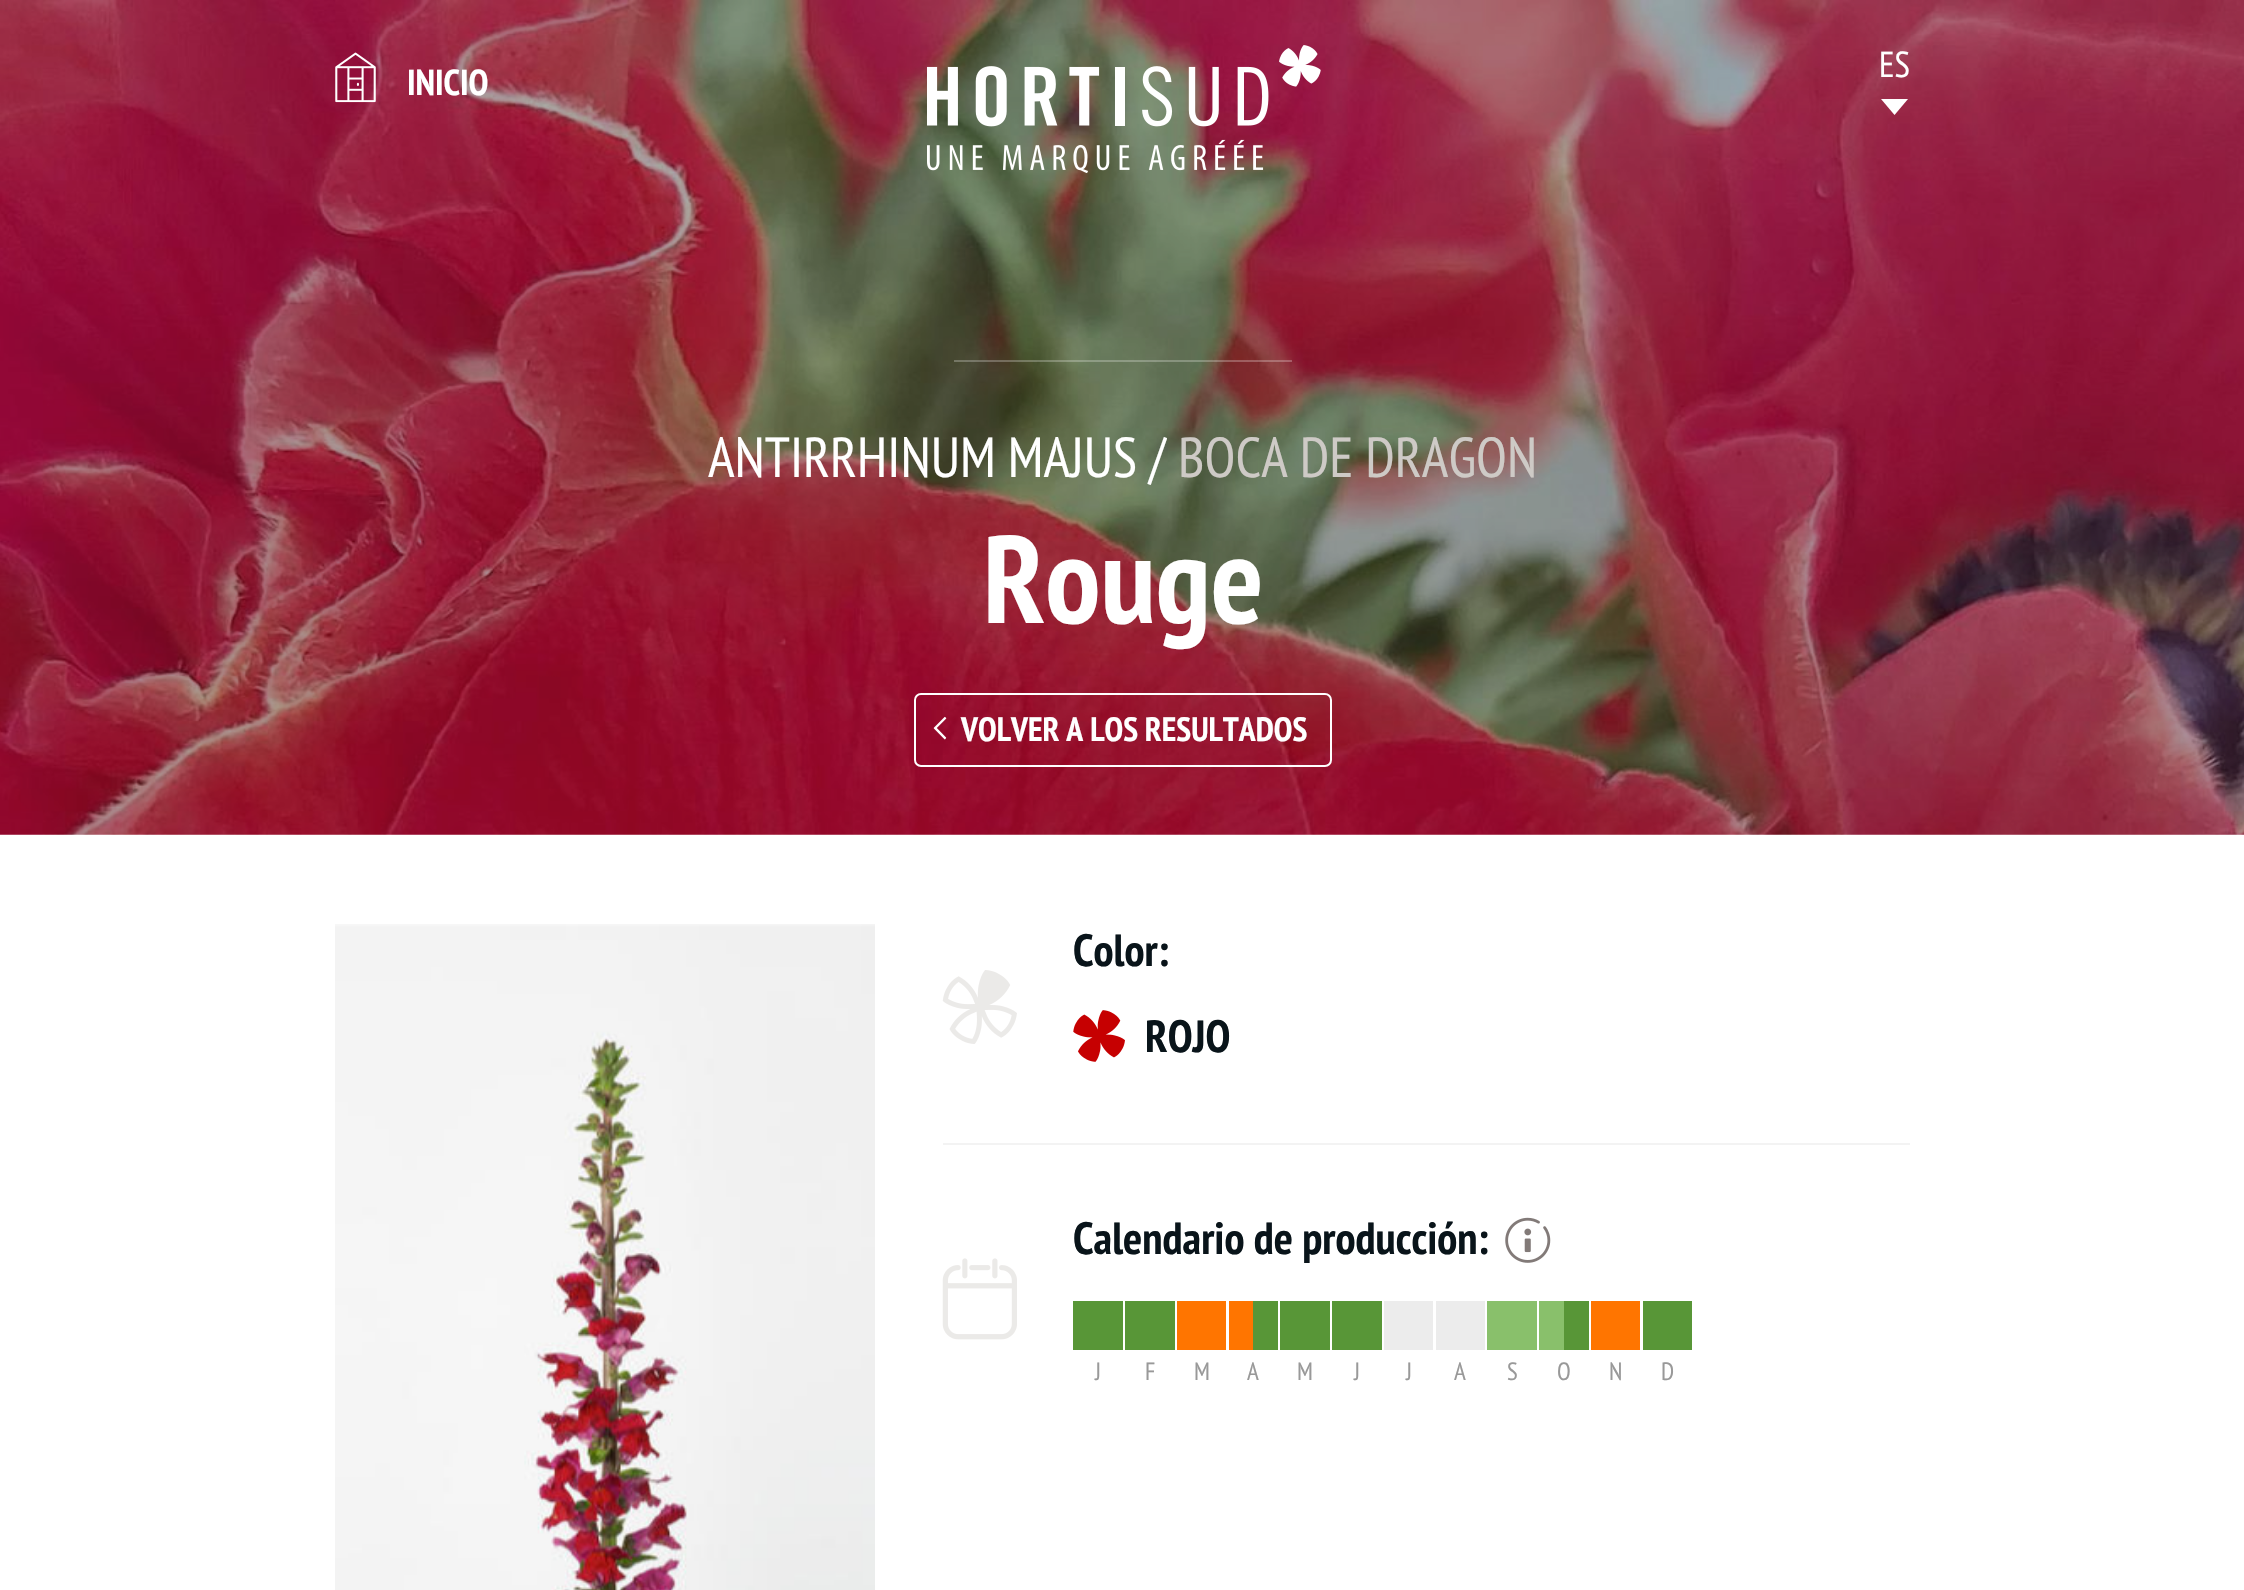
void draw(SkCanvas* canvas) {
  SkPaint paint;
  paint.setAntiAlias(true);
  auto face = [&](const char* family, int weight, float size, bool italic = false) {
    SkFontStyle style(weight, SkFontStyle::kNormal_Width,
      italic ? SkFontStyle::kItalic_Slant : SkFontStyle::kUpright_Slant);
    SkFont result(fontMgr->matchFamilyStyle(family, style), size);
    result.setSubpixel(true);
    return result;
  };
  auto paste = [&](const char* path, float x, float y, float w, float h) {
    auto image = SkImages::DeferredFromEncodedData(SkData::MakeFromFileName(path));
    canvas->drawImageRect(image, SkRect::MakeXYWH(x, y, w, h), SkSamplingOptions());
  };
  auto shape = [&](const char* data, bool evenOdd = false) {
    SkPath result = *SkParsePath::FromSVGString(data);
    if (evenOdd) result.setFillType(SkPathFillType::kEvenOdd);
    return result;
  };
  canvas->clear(0xffffffff);
  paste("img/3.png", 0, 0, 2244, 835);
  paste("img/1.png", 927, 45, 394, 128);
  paint.setColor(0xffffffff);
  canvas->drawPath(shape("M1881 99H1908L1894.5 115Z"), paint);
  paste("img/2.png", 335, 52, 41, 51);
  paint.setColor(0x40ffffff);
  canvas->drawRect(SkRect::MakeXYWH(954, 360, 338, 2), paint);
  paint.setStroke(true);
  paint.setStrokeWidth(2);
  paint.setColor(0xffffffff);
  canvas->drawRoundRect(SkRect::MakeXYWH(915, 694, 416, 72), 6, 6, paint);
  paste("img/4.png", 933, 716, 14, 24);
  paste("img/5.png", 335, 924, 540, 666);
  paint.setStroke(false);
  paint.setColor(0xfff3f3f3);
  canvas->drawRect(SkRect::MakeXYWH(943, 1143, 967, 2), paint);
  paste("img/6.png", 942, 970, 75, 74);
  paste("img/7.png", 1073, 1010, 52, 52);
  paste("img/8.png", 1505, 1217, 46, 46);
  paste("img/9.png", 942, 1258, 75, 82);
  {
    const struct { float x, y, w, h; SkColor color; } items[] = {
      {1073, 1301, 50, 49, 0xff589637},
      {1125, 1301, 50, 49, 0xff589637},
      {1177, 1301, 49, 49, 0xffff7500},
      {1229, 1301, 24, 49, 0xffff7500},
      {1253, 1301, 25, 49, 0xff589637},
      {1280, 1301, 50, 49, 0xff589637},
      {1332, 1301, 50, 49, 0xff589637},
      {1384, 1301, 49, 49, 0xffececec},
      {1436, 1301, 49, 49, 0xffececec},
      {1487, 1301, 50, 49, 0xff89c06b},
      {1539, 1301, 25, 49, 0xff89c06b},
      {1564, 1301, 25, 49, 0xff589637},
      {1591, 1301, 49, 49, 0xffff7500},
      {1643, 1301, 49, 49, 0xff589637},
    };
    for (auto [x, y, w, h, color] : items) {
      paint.setColor(color);
      canvas->drawRect(SkRect::MakeXYWH(x, y, w, h), paint);
    }
  }
  auto f0 = face("PT Sans Narrow", 400, 36);
  paint.setColor(0xffffffff);
  canvas->drawString("ES", 1879, 77, f0, paint);
  auto f1 = face("PT Sans Narrow", 700, 36);
  canvas->drawString("INICIO", 407, 95, f1, paint);
  auto f2 = face("PT Sans Narrow", 400, 56.25f);
  canvas->drawString("ANTIRRHINUM MAJUS /", 708, 477, f2, paint);
  paint.setColor(0xffcecac6);
  canvas->drawString("BOCA DE DRAGON", 1178, 477, f2, paint);
  auto f3 = face("PT Sans Narrow", 700, 124);
  paint.setColor(0xffffffff);
  canvas->drawString("Rouge", 983, 623, f3, paint);
  auto f4 = face("PT Sans Narrow", 700, 33.75f);
  canvas->drawString("VOLVER A LOS RESULTADOS", 961, 741, f4, paint);
  auto f5 = face("PT Sans Narrow", 700, 45);
  paint.setColor(0xff09141a);
  {
    const struct { const char* s; float x, y; } items[] = {
      {"Color:", 1073, 966},
      {"ROJO", 1145, 1052},
      {"Calendario de producción:", 1073, 1254},
    };
    for (auto [s, x, y] : items) {
      canvas->drawString(s, x, y, f5, paint);
    }
  }
  auto f6 = face("PT Sans Narrow", 400, 25);
  paint.setColor(0xff999999);
  {
    const struct { const char* s; float x, y; } items[] = {
      {"J", 1095, 1380},
      {"F", 1145, 1380},
      {"M", 1194, 1380},
      {"A", 1247, 1380},
      {"M", 1297, 1380},
      {"J", 1354, 1380},
      {"J", 1406, 1380},
      {"A", 1454, 1380},
      {"S", 1507, 1380},
      {"O", 1557, 1380},
      {"N", 1609, 1380},
      {"D", 1661, 1380},
    };
    for (auto [s, x, y] : items) {
      canvas->drawString(s, x, y, f6, paint);
    }
  }
}
